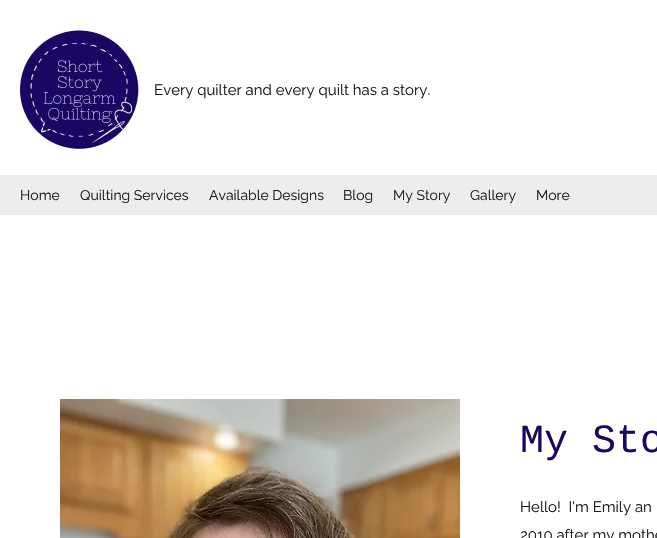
void draw(SkCanvas* canvas) {
  SkPaint paint;
  paint.setAntiAlias(true);
  auto face = [&](const char* family, int weight, float size, bool italic = false) {
    SkFontStyle style(weight, SkFontStyle::kNormal_Width,
      italic ? SkFontStyle::kItalic_Slant : SkFontStyle::kUpright_Slant);
    SkFont result(fontMgr->matchFamilyStyle(family, style), size);
    result.setSubpixel(true);
    return result;
  };
  auto paste = [&](const char* path, float x, float y, float w, float h) {
    auto image = SkImages::DeferredFromEncodedData(SkData::MakeFromFileName(path));
    canvas->drawImageRect(image, SkRect::MakeXYWH(x, y, w, h), SkSamplingOptions());
  };
  canvas->clear(0xffffffff);
  paste("img/1.png", 20, 30, 119, 119);
  paint.setColor(0xffededee);
  canvas->drawRect(SkRect::MakeXYWH(0, 175, 657, 40), paint);
  paste("img/2.png", 60, 399, 400, 139);
  auto f0 = face("Raleway", 400, 15);
  paint.setColor(0xff181818);
  canvas->drawString("Every quilter and every quilt has a story.", 154, 95, f0, paint);
  auto f1 = face("Raleway", 400, 14);
  {
    const struct { const char* s; float x, y; } items[] = {
      {"Home", 20, 200},
      {"Quilting Services", 80, 200},
      {"Available Designs", 209, 200},
      {"Blog", 343, 200},
    };
    for (auto [s, x, y] : items) {
      canvas->drawString(s, x, y, f1, paint);
    }
  }
  paint.setColor(0xff202020);
  canvas->drawString("My Story", 393, 200, f1, paint);
  paint.setColor(0xff181818);
  canvas->drawString("Gallery", 470, 200, f1, paint);
  canvas->drawString("More", 536, 200, f1, paint);
  auto f2 = face("Liberation Mono", 400, 40);
  paint.setColor(0xff1a0764);
  canvas->drawString("My Sto", 520, 452, f2, paint);
  paint.setColor(0xff181818);
  canvas->drawString("Hello!  I'm Emily an", 520, 512, f0, paint);
  canvas->drawString("2010 after my mothe", 520, 540, f0, paint);
}
